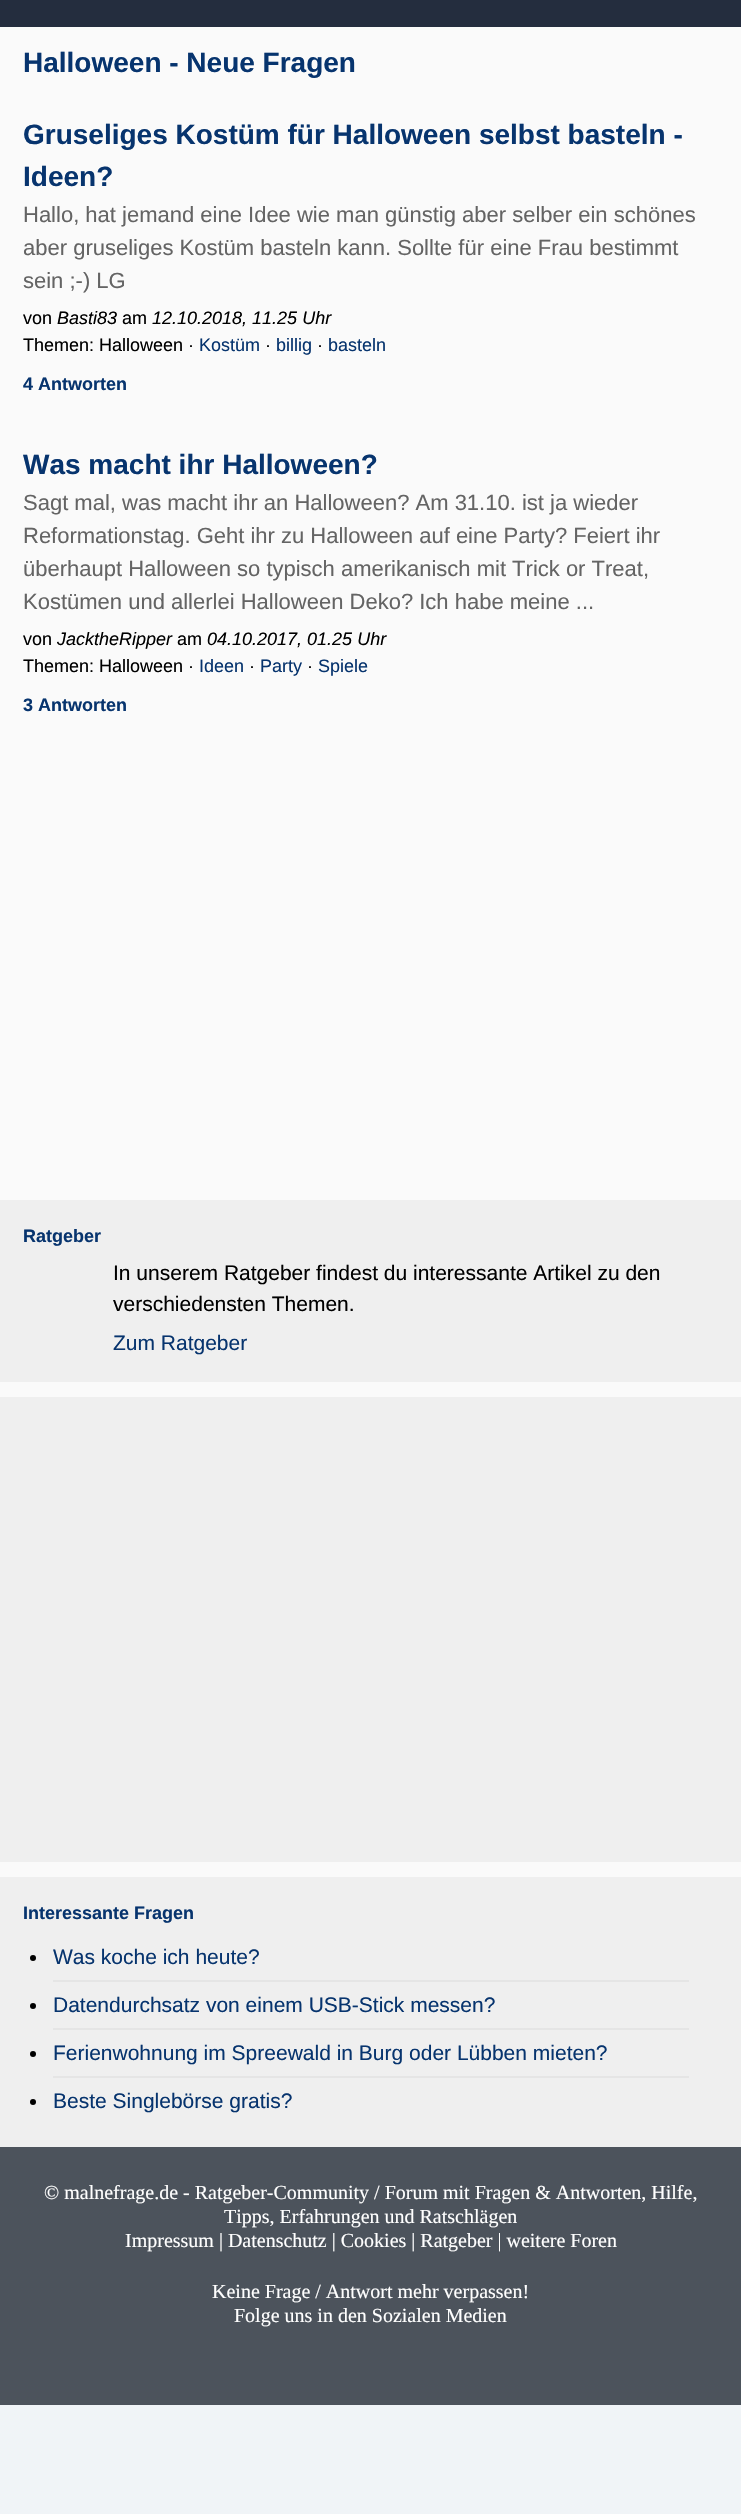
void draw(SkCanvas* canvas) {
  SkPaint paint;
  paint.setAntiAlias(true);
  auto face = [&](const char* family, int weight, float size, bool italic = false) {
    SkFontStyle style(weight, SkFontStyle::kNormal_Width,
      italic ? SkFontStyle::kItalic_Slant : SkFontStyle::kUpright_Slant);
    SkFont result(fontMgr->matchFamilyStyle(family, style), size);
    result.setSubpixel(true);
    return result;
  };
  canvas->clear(0xfff0f4f7);
  {
    const struct { float x, y, w, h; SkColor color; } items[] = {
      {0, 0, 741, 27, 0xff242d3e},
      {0, 27, 741, 1850, 0xfffafafa},
      {0, 1200, 741, 182, 0xffefefef},
      {0, 1397, 741, 465, 0xffefefef},
      {0, 1877, 741, 270, 0xffefefef},
      {53, 1980, 636, 2, 0xffe5e5e5},
    };
    for (auto [x, y, w, h, color] : items) {
      paint.setColor(color);
      canvas->drawRect(SkRect::MakeXYWH(x, y, w, h), paint);
    }
  }
  paint.setColor(0xff000000);
  canvas->drawCircle(33, 1958, 3, paint);
  paint.setColor(0xffe5e5e5);
  canvas->drawRect(SkRect::MakeXYWH(53, 2028, 636, 2), paint);
  paint.setColor(0xff000000);
  canvas->drawCircle(33, 2006, 3, paint);
  paint.setColor(0xffe5e5e5);
  canvas->drawRect(SkRect::MakeXYWH(53, 2076, 636, 2), paint);
  paint.setColor(0xff000000);
  canvas->drawCircle(33, 2054, 3, paint);
  canvas->drawCircle(33, 2102, 3, paint);
  paint.setColor(0xff4c535c);
  canvas->drawRect(SkRect::MakeXYWH(0, 2147, 741, 258), paint);
  auto f0 = face("Liberation Sans", 700, 28);
  paint.setColor(0xff07346e);
  {
    const struct { const char* s; float x, y; } items[] = {
      {"Halloween - Neue Fragen", 23, 72},
      {"Gruseliges Kostüm für Halloween selbst basteln -", 23, 144},
      {"Ideen?", 23, 186},
    };
    for (auto [s, x, y] : items) {
      canvas->drawString(s, x, y, f0, paint);
    }
  }
  auto f1 = face("Liberation Sans", 400, 22);
  paint.setColor(0xff646464);
  {
    const struct { const char* s; float x, y; } items[] = {
      {"Hallo, hat jemand eine Idee wie man günstig aber selber ein schönes", 23, 222},
      {"aber gruseliges Kostüm basteln kann. Sollte für eine Frau bestimmt", 23, 255},
      {"sein ;-) LG", 23, 288},
    };
    for (auto [s, x, y] : items) {
      canvas->drawString(s, x, y, f1, paint);
    }
  }
  auto f2 = face("Liberation Sans", 400, 18);
  paint.setColor(0xff000000);
  canvas->drawString("von", 23, 324, f2, paint);
  auto f3 = face("Liberation Sans", 400, 18, true);
  canvas->drawString("Basti83", 57, 324, f3, paint);
  canvas->drawString("am", 122, 324, f2, paint);
  canvas->drawString("12.10.2018, 11.25 Uhr", 152, 324, f3, paint);
  canvas->drawString("Themen: Halloween ·", 23, 351, f2, paint);
  paint.setColor(0xff07346e);
  canvas->drawString("Kostüm", 199, 351, f2, paint);
  paint.setColor(0xff000000);
  canvas->drawString("·", 265, 351, f2, paint);
  paint.setColor(0xff07346e);
  canvas->drawString("billig", 276, 351, f2, paint);
  paint.setColor(0xff000000);
  canvas->drawString("·", 317, 351, f2, paint);
  paint.setColor(0xff07346e);
  canvas->drawString("basteln", 328, 351, f2, paint);
  auto f4 = face("Liberation Sans", 700, 18);
  canvas->drawString("4 Antworten", 23, 390, f4, paint);
  canvas->drawString("Was macht ihr Halloween?", 23, 474, f0, paint);
  paint.setColor(0xff646464);
  {
    const struct { const char* s; float x, y; } items[] = {
      {"Sagt mal, was macht ihr an Halloween? Am 31.10. ist ja wieder", 23, 510},
      {"Reformationstag. Geht ihr zu Halloween auf eine Party? Feiert ihr", 23, 543},
      {"überhaupt Halloween so typisch amerikanisch mit Trick or Treat,", 23, 576},
      {"Kostümen und allerlei Halloween Deko? Ich habe meine ...", 23, 609},
    };
    for (auto [s, x, y] : items) {
      canvas->drawString(s, x, y, f1, paint);
    }
  }
  paint.setColor(0xff000000);
  canvas->drawString("von", 23, 645, f2, paint);
  canvas->drawString("JacktheRipper", 57, 645, f3, paint);
  canvas->drawString("am", 177, 645, f2, paint);
  canvas->drawString("04.10.2017, 01.25 Uhr", 207, 645, f3, paint);
  canvas->drawString("Themen: Halloween ·", 23, 672, f2, paint);
  paint.setColor(0xff07346e);
  canvas->drawString("Ideen", 199, 672, f2, paint);
  paint.setColor(0xff000000);
  canvas->drawString("·", 249, 672, f2, paint);
  paint.setColor(0xff07346e);
  canvas->drawString("Party", 260, 672, f2, paint);
  paint.setColor(0xff000000);
  canvas->drawString("·", 307, 672, f2, paint);
  paint.setColor(0xff07346e);
  canvas->drawString("Spiele", 318, 672, f2, paint);
  canvas->drawString("3 Antworten", 23, 711, f4, paint);
  canvas->drawString("Ratgeber", 23, 1242, f4, paint);
  auto f5 = face("Liberation Sans", 400, 21);
  paint.setColor(0xff000000);
  canvas->drawString("In unserem Ratgeber findest du interessante Artikel zu den", 113, 1280, f5, paint);
  canvas->drawString("verschiedensten Themen.", 113, 1311, f5, paint);
  paint.setColor(0xff07346e);
  canvas->drawString("Zum Ratgeber", 113, 1350, f5, paint);
  canvas->drawString("Interessante Fragen", 23, 1919, f4, paint);
  {
    const struct { const char* s; float x, y; } items[] = {
      {"Was koche ich heute?", 53, 1964},
      {"Datendurchsatz von einem USB-Stick messen?", 53, 2012},
      {"Ferienwohnung im Spreewald in Burg oder Lübben mieten?", 53, 2060},
      {"Beste Singlebörse gratis?", 53, 2108},
    };
    for (auto [s, x, y] : items) {
      canvas->drawString(s, x, y, f5, paint);
    }
  }
  auto f6 = face("Liberation Serif", 400, 20);
  paint.setColor(0xffffffff);
  {
    const struct { const char* s; float x, y; } items[] = {
      {"© malnefrage.de - Ratgeber-Community / Forum mit Fragen & Antworten, Hilfe,", 44, 2199},
      {"Tipps, Erfahrungen und Ratschlägen", 224, 2223},
      {"Impressum | Datenschutz | Cookies | Ratgeber | weitere Foren", 125, 2247},
      {"Keine Frage / Antwort mehr verpassen!", 212, 2298},
      {"Folge uns in den Sozialen Medien", 234, 2322},
    };
    for (auto [s, x, y] : items) {
      canvas->drawString(s, x, y, f6, paint);
    }
  }
}
